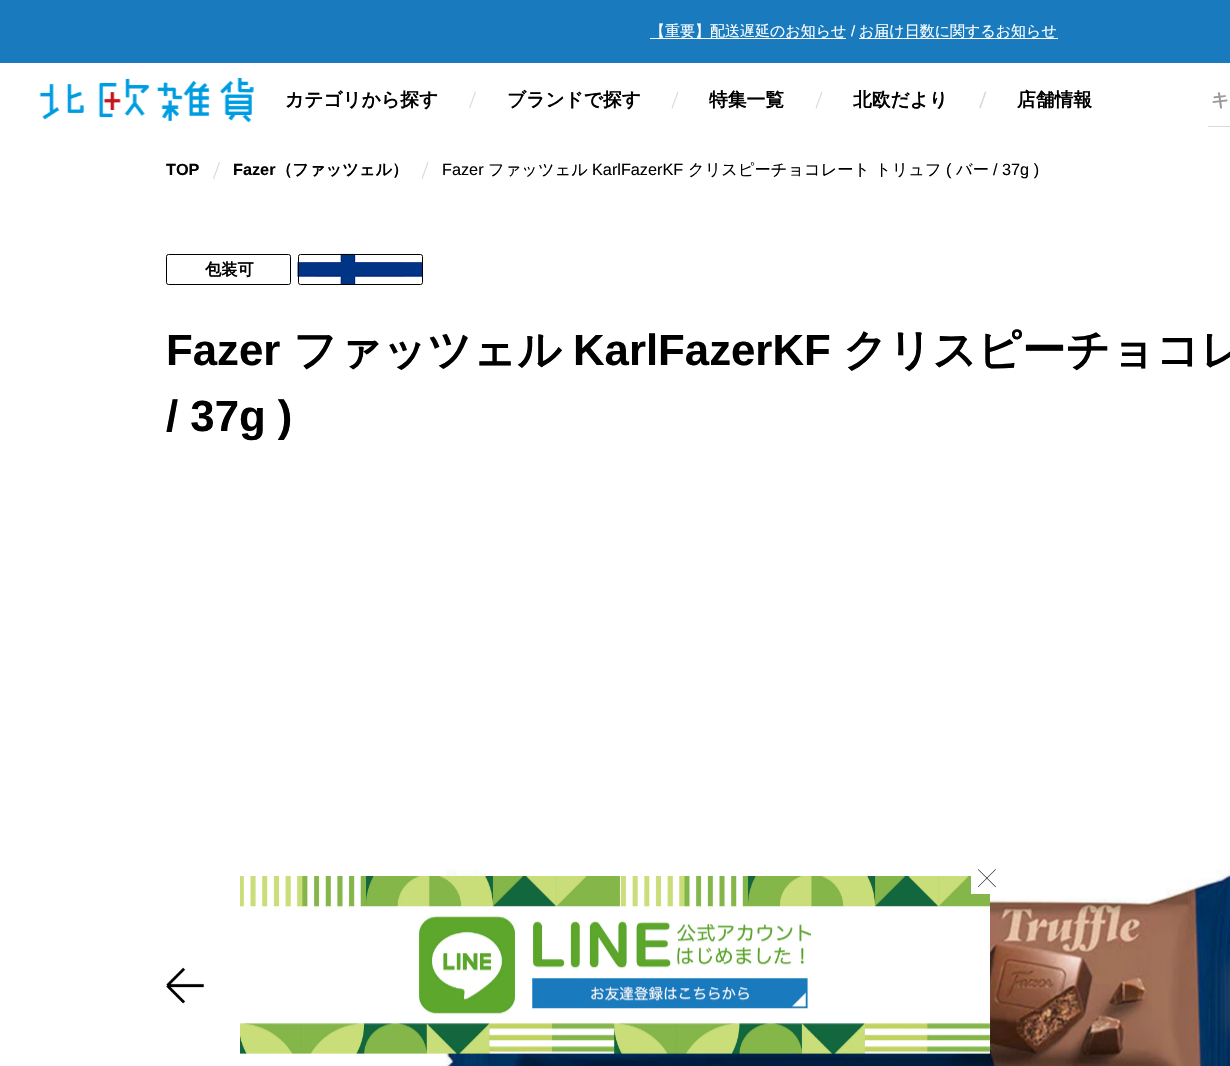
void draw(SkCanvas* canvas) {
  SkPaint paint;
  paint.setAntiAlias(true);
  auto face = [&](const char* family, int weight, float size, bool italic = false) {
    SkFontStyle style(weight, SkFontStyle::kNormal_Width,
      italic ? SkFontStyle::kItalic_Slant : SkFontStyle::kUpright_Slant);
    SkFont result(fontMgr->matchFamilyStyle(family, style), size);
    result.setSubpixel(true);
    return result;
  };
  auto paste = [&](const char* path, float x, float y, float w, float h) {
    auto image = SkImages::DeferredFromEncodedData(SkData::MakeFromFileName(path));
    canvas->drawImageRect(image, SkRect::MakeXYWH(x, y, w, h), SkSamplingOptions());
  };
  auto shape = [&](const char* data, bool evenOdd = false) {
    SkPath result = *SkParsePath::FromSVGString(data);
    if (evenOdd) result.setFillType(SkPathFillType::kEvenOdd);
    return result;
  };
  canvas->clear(0xffffffff);
  {
    const struct { float x, y, w, h; SkColor color; } items[] = {
      {0, 0, 1230, 63, 0xff197bbd},
      {650, 38, 196, 1, 0xffffffff},
      {859, 38, 199, 1, 0xffffffff},
    };
    for (auto [x, y, w, h, color] : items) {
      paint.setColor(color);
      canvas->drawRect(SkRect::MakeXYWH(x, y, w, h), paint);
    }
  }
  paste("img/1.png", 39, 78, 215, 45);
  paint.setColor(0xffd9d9d9);
  canvas->drawPath(shape("M475 91.5L476 92L470 108.5L469 108Z"), paint);
  canvas->drawPath(shape("M677.5 91.5L678.5 92L672.5 108.5L671.5 108Z"), paint);
  canvas->drawPath(shape("M821.5 91.5L822.5 92L816.5 108.5L815.5 108Z"), paint);
  canvas->drawPath(shape("M985 91.5L986.5 92L980.5 108.5L979 108Z"), paint);
  paint.setColor(0xffdadada);
  canvas->drawRect(SkRect::MakeXYWH(1208, 126, 22, 1), paint);
  paint.setColor(0xffd9d9d9);
  canvas->drawPath(shape("M219 162L220 162.5L214 179L213 178.5Z"), paint);
  canvas->drawPath(shape("M427.5 162L428.5 162.5L422.5 179L421.5 178.5Z"), paint);
  paint.setStroke(true);
  paint.setStrokeWidth(1);
  paint.setColor(0xff000000);
  canvas->drawRoundRect(SkRect::MakeXYWH(166.5f, 254.5f, 124, 30), 2, 2, paint);
  paste("img/2.png", 297, 253, 126, 32);
  canvas->drawRoundRect(SkRect::MakeXYWH(298.5f, 254.5f, 124, 30), 2, 2, paint);
  paste("img/3.png", 166, 967, 38, 37);
  paste("img/4.png", 436, 869, 794, 197);
  paste("img/6.png", 240, 876, 750, 178);
  paint.setStroke(false);
  paint.setColor(0xffffffff);
  canvas->drawRect(SkRect::MakeXYWH(971, 876, 19, 18), paint);
  paste("img/5.png", 978, 869, 18, 19);
  paint.setColor(0x80757575);
  paint.setMaskFilter(SkMaskFilter::MakeBlur(kNormal_SkBlurStyle, 9));
  canvas->drawRect(SkRect::MakeXYWH(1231, 966, 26, 63), paint);
  paint.setMaskFilter(nullptr);
  auto f0 = face("WenQuanYi Zen Hei", 500, 15);
  paint.setColor(0xffffffff);
  canvas->drawString("【重要】配送遅延のお知らせ", 650, 36, f0, paint);
  auto f1 = face("Liberation Sans", 400, 15);
  canvas->drawString("/", 851, 36, f1, paint);
  canvas->drawString("お届け日数に関するお知らせ", 859, 36, f0, paint);
  auto f2 = face("WenQuanYi Zen Hei", 700, 18.75f);
  paint.setColor(0xff000000);
  {
    const struct { const char* s; float x, y; } items[] = {
      {"カテゴリから探す", 285, 106},
      {"ブランドで探す", 507, 106},
      {"特集一覧", 709, 106},
      {"北欧だより", 853, 106},
      {"店舗情報", 1017, 106},
    };
    for (auto [s, x, y] : items) {
      canvas->drawString(s, x, y, f2, paint);
    }
  }
  auto f3 = face("WenQuanYi Zen Hei", 700, 18);
  paint.setColor(0xff999999);
  canvas->drawString("キ", 1211, 106, f3, paint);
  auto f4 = face("Liberation Sans", 700, 16.25f);
  paint.setColor(0xff000000);
  canvas->drawString("TOP", 166, 175, f4, paint);
  canvas->drawString("Fazer", 233, 175, f4, paint);
  auto f5 = face("WenQuanYi Zen Hei", 700, 16.25f);
  canvas->drawString("（ファッツェル）", 276, 175, f5, paint);
  auto f6 = face("Liberation Sans", 400, 16.25f);
  canvas->drawString("Fazer", 442, 175, f6, paint);
  auto f7 = face("WenQuanYi Zen Hei", 500, 16.25f);
  canvas->drawString("ファッツェル", 488, 175, f7, paint);
  canvas->drawString("KarlFazerKF", 592, 175, f6, paint);
  canvas->drawString("クリスピーチョコレート", 688, 175, f7, paint);
  canvas->drawString("トリュフ", 875, 175, f7, paint);
  canvas->drawString("(", 946, 175, f6, paint);
  canvas->drawString("バー", 956, 175, f7, paint);
  canvas->drawString("/ 37g )", 993, 175, f6, paint);
  canvas->drawString("包装可", 205, 275, f5, paint);
  auto f8 = face("Liberation Sans", 700, 43.75f);
  canvas->drawString("Fazer", 166, 365, f8, paint);
  auto f9 = face("WenQuanYi Zen Hei", 700, 43.75f);
  canvas->drawString("ファッツェル", 293, 365, f9, paint);
  canvas->drawString("KarlFazerKF", 573, 365, f8, paint);
  canvas->drawString("クリスピーチョコレ", 843, 365, f9, paint);
  canvas->drawString("/ 37g )", 166, 431, f8, paint);
}
